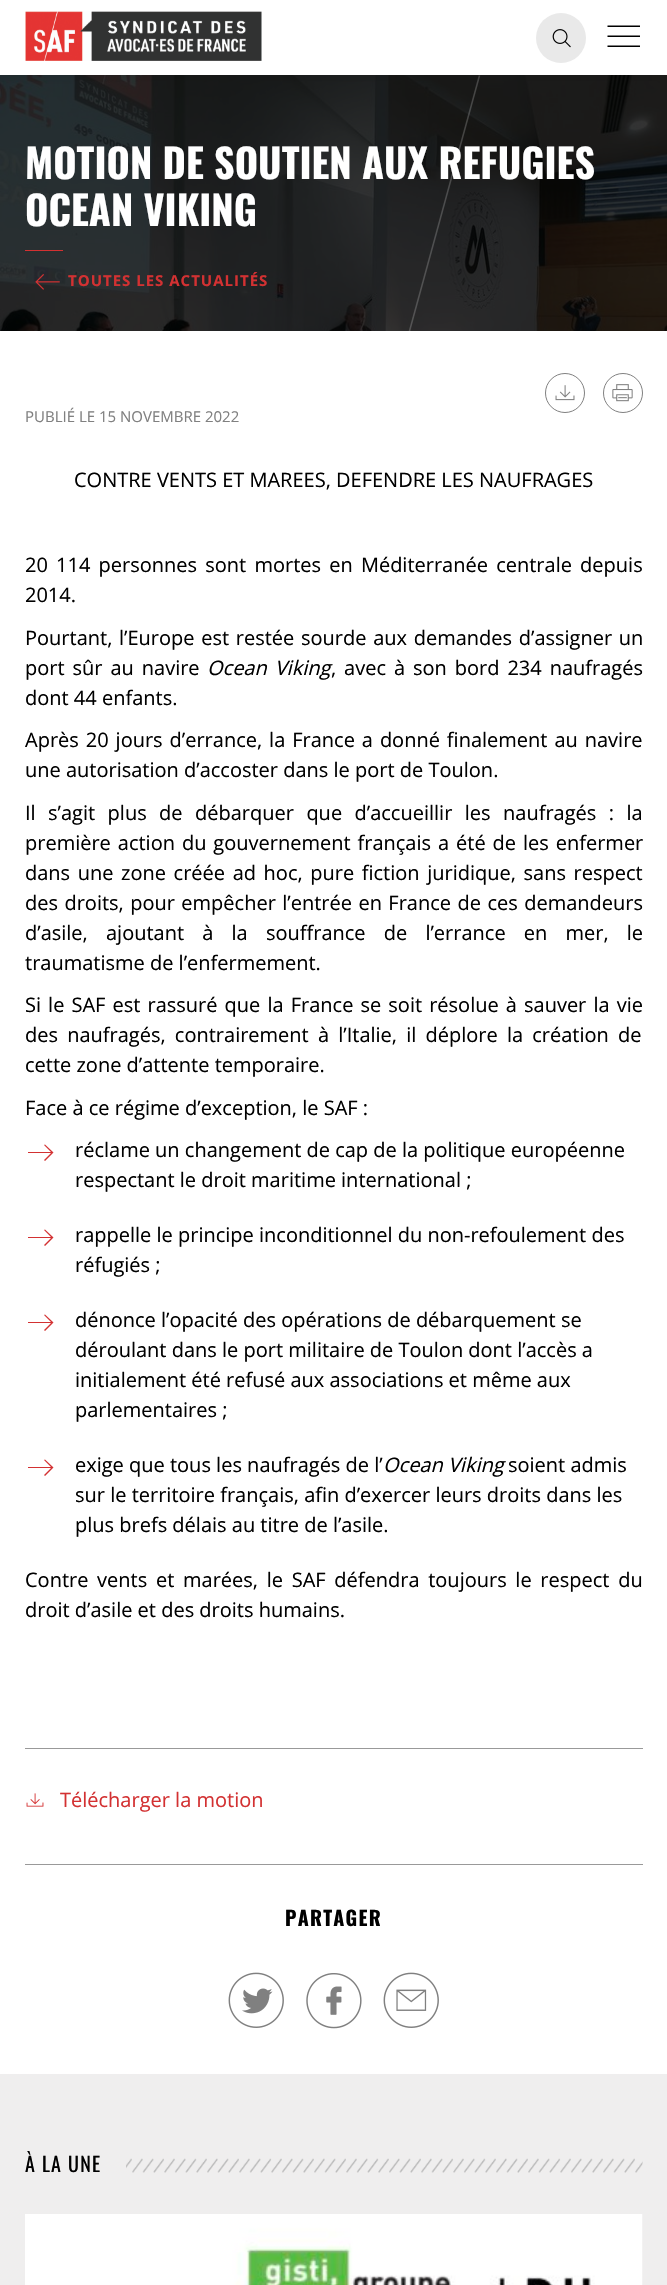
void draw(SkCanvas* canvas) {
  SkPaint paint;
  paint.setAntiAlias(true);
  auto face = [&](const char* family, int weight, float size, bool italic = false) {
    SkFontStyle style(weight, SkFontStyle::kNormal_Width,
      italic ? SkFontStyle::kItalic_Slant : SkFontStyle::kUpright_Slant);
    SkFont result(fontMgr->matchFamilyStyle(family, style), size);
    result.setSubpixel(true);
    return result;
  };
  auto writeSpaced = [&](const char* s, float x, float y, const SkFont& font, const SkPaint& ink, float letter, float word) {
    std::vector<SkGlyphID> glyphs(font.countText(s, strlen(s), SkTextEncoding::kUTF8));
    std::vector<float> xs(glyphs.size());
    font.textToGlyphs(s, strlen(s), SkTextEncoding::kUTF8, glyphs);
    font.getXPos(glyphs, xs, x);
    float extra = 0;
    for (size_t i = 0; i < glyphs.size(); i++) {
      xs[i] += extra;
      extra += letter + word * (glyphs[i] == font.unicharToGlyph(' '));
    }
    canvas->drawTextBlob(SkTextBlob::MakeFromPosHGlyphs(glyphs, xs, y, font), 0, 0, ink);
  };
  auto paste = [&](const char* path, float x, float y, float w, float h) {
    auto image = SkImages::DeferredFromEncodedData(SkData::MakeFromFileName(path));
    canvas->drawImageRect(image, SkRect::MakeXYWH(x, y, w, h), SkSamplingOptions());
  };
  auto shape = [&](const char* data, bool evenOdd = false) {
    SkPath result = *SkParsePath::FromSVGString(data);
    if (evenOdd) result.setFillType(SkPathFillType::kEvenOdd);
    return result;
  };
  canvas->clear(0xffefeeee);
  paste("img/3.png", 0, 75, 667, 256);
  paint.setStroke(true);
  paint.setStrokeWidth(1.5f);
  paint.setColor(0x33ffffff);
  canvas->drawPath(shape("M479.5 75.5L348 555.5"), paint);
  paint.setStroke(false);
  paint.setColor(0x99000000);
  paint.setMaskFilter(SkMaskFilter::MakeBlur(kNormal_SkBlurStyle, 13));
  canvas->drawRect(SkRect::MakeXYWH(0, -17, 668, 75), paint);
  paint.setMaskFilter(nullptr);
  paint.setColor(0xffffffff);
  canvas->drawRect(SkRect::MakeXYWH(0, 0, 667, 75), paint);
  paste("img/1.png", 25, 11, 237, 50);
  paint.setColor(0xffe9e9e9);
  canvas->drawCircle(561, 38, 25, paint);
  paste("img/2.png", 552, 29, 19, 19);
  paint.setColor(0xff000000);
  canvas->drawPath(shape("M607.5 25.5H640V27H607.5ZM607.5 35.5H640V37H607.5ZM607.5 45.5H640V47H607.5Z"), paint);
  paint.setColor(0xffd33132);
  canvas->drawRect(SkRect::MakeXYWH(25, 250, 38, 1), paint);
  paste("img/4.png", 35, 274, 25, 16);
  paint.setColor(0xffffffff);
  canvas->drawRect(SkRect::MakeXYWH(0, 331, 667, 1743), paint);
  paint.setStroke(true);
  paint.setStrokeWidth(1);
  paint.setColor(0xff808080);
  canvas->drawCircle(565, 393, 19.5f, paint);
  canvas->drawCircle(623, 393, 19.5f, paint);
  paste("img/5.png", 555, 385, 20, 16);
  paste("img/6.png", 612, 384, 21, 18);
  paint.setStroke(false);
  paint.setColor(0xffd33132);
  canvas->drawPath(shape("M45 1144.5L44 1145L51 1152H28V1153H51L44 1160L45 1161L53.5 1152.5Z"), paint);
  canvas->drawPath(shape("M45 1229.5L44 1230L51 1237H28V1238H51L44 1245L45 1246L53.5 1237.5Z"), paint);
  canvas->drawPath(shape("M45 1314.5L44 1315L51 1322H28V1323H51L44 1330L45 1331L53.5 1322.5Z"), paint);
  canvas->drawPath(shape("M45 1459.5L44 1460L51 1467H28V1468H51L44 1475L45 1476L53.5 1467.5Z"), paint);
  paint.setColor(0xff999999);
  canvas->drawRect(SkRect::MakeXYWH(25, 1748, 618, 1), paint);
  paste("img/7.png", 26, 1793, 18, 14);
  canvas->drawRect(SkRect::MakeXYWH(25, 1864, 618, 1), paint);
  paste("img/8.png", 228, 1972, 56, 56);
  paste("img/9.png", 306, 1973, 56, 56);
  paste("img/10.png", 383, 1972, 56, 56);
  paste("img/11.png", 126, 2158, 517, 15);
  paste("img/12.png", 25, 2214, 618, 71);
  auto f0 = face("Oswald", 700, 40);
  paint.setColor(0xffffffff);
  canvas->drawString("MOTION DE SOUTIEN AUX REFUGIES", 25, 179, f0, paint);
  canvas->drawString("OCEAN VIKING", 25, 226, f0, paint);
  auto f1 = face("Open Sans", 700, 15);
  paint.setColor(0xffd33132);
  writeSpaced("TOUTES LES ACTUALITÉS", 68, 286, f1, paint, 1, 0);
  auto f2 = face("Open Sans", 400, 15);
  paint.setColor(0xff808080);
  canvas->drawString("PUBLIÉ LE 15 NOVEMBRE 2022", 25, 422, f2, paint);
  auto f3 = face("Open Sans", 400, 20);
  paint.setColor(0xff000000);
  canvas->drawString("CONTRE VENTS ET MAREES, DEFENDRE LES NAUFRAGES", 74, 487, f3, paint);
  writeSpaced("20 114 personnes sont mortes en Méditerranée centrale depuis", 25, 572, f3, paint, 0, 3);
  canvas->drawString("2014.", 25, 602, f3, paint);
  writeSpaced("Pourtant, l’Europe est restée sourde aux demandes d’assigner un", 25, 645, f3, paint, 0, 1.5f);
  writeSpaced("port sûr au navire", 25, 675, f3, paint, 0, 2.75f);
  auto f4 = face("Open Sans", 400, 20, true);
  writeSpaced("Ocean Viking", 207, 675, f4, paint, 0, 2.75f);
  writeSpaced(", avec à son bord 234 naufragés", 331, 675, f3, paint, 0, 2.75f);
  canvas->drawString("dont 44 enfants.", 25, 705, f3, paint);
  writeSpaced("Après 20 jours d’errance, la France a donné finalement au navire", 25, 747, f3, paint, 0, 1.75f);
  canvas->drawString("une autorisation d’accoster dans le port de Toulon.", 25, 777, f3, paint);
  writeSpaced("Il s’agit plus de débarquer que d’accueillir les naufragés : la", 25, 820, f3, paint, 0, 7.25f);
  writeSpaced("première action du gouvernement français a été de les enfermer", 25, 850, f3, paint, 0, 1.75f);
  writeSpaced("dans une zone créée ad hoc, pure fiction juridique, sans respect", 25, 880, f3, paint, 0, 2.4f);
  writeSpaced("des droits, pour empêcher l’entrée en France de ces demandeurs", 25, 910, f3, paint, 0, 1.25f);
  writeSpaced("d’asile, ajoutant à la souffrance de l’errance en mer, le", 25, 940, f3, paint, 0, 13);
  canvas->drawString("traumatisme de l’enfermement.", 25, 970, f3, paint);
  writeSpaced("Si le SAF est rassuré que la France se soit résolue à sauver la vie", 25, 1012, f3, paint, 0, 1.9f);
  writeSpaced("des naufragés, contrairement à l’Italie, il déplore la création de", 25, 1042, f3, paint, 0, 4);
  {
    const struct { const char* s; float x, y; } items[] = {
      {"cette zone d’attente temporaire.", 25, 1072},
      {"Face à ce régime d’exception, le SAF :", 25, 1115},
      {"réclame un changement de cap de la politique européenne", 75, 1157},
      {"respectant le droit maritime international ;", 75, 1187},
      {"rappelle le principe inconditionnel du non-refoulement des", 75, 1242},
      {"réfugiés ;", 75, 1272},
      {"dénonce l’opacité des opérations de débarquement se", 75, 1327},
      {"déroulant dans le port militaire de Toulon dont l’accès a", 75, 1357},
      {"initialement été refusé aux associations et même aux", 75, 1387},
      {"parlementaires ;", 75, 1417},
      {"exige que tous les naufragés de l’", 75, 1472},
    };
    for (auto [s, x, y] : items) {
      canvas->drawString(s, x, y, f3, paint);
    }
  }
  canvas->drawString("Ocean Viking", 383, 1472, f4, paint);
  {
    const struct { const char* s; float x, y; } items[] = {
      {"soient admis", 508, 1472},
      {"sur le territoire français, afin d’exercer leurs droits dans les", 75, 1502},
      {"plus brefs délais au titre de l’asile.", 75, 1532},
    };
    for (auto [s, x, y] : items) {
      canvas->drawString(s, x, y, f3, paint);
    }
  }
  writeSpaced("Contre vents et marées, le SAF défendra toujours le respect du", 25, 1587, f3, paint, 0, 3.5f);
  canvas->drawString("droit d’asile et des droits humains.", 25, 1617, f3, paint);
  paint.setColor(0xffd33132);
  canvas->drawString("Télécharger la motion", 60, 1807, f3, paint);
  auto f5 = face("Oswald", 700, 20);
  paint.setColor(0xff000000);
  writeSpaced("PARTAGER", 285, 1926, f5, paint, 1.25f, 0);
  auto f6 = face("Oswald", 400, 20);
  writeSpaced("À LA UNE", 25, 2172, f6, paint, 1.25f, 0);
}
